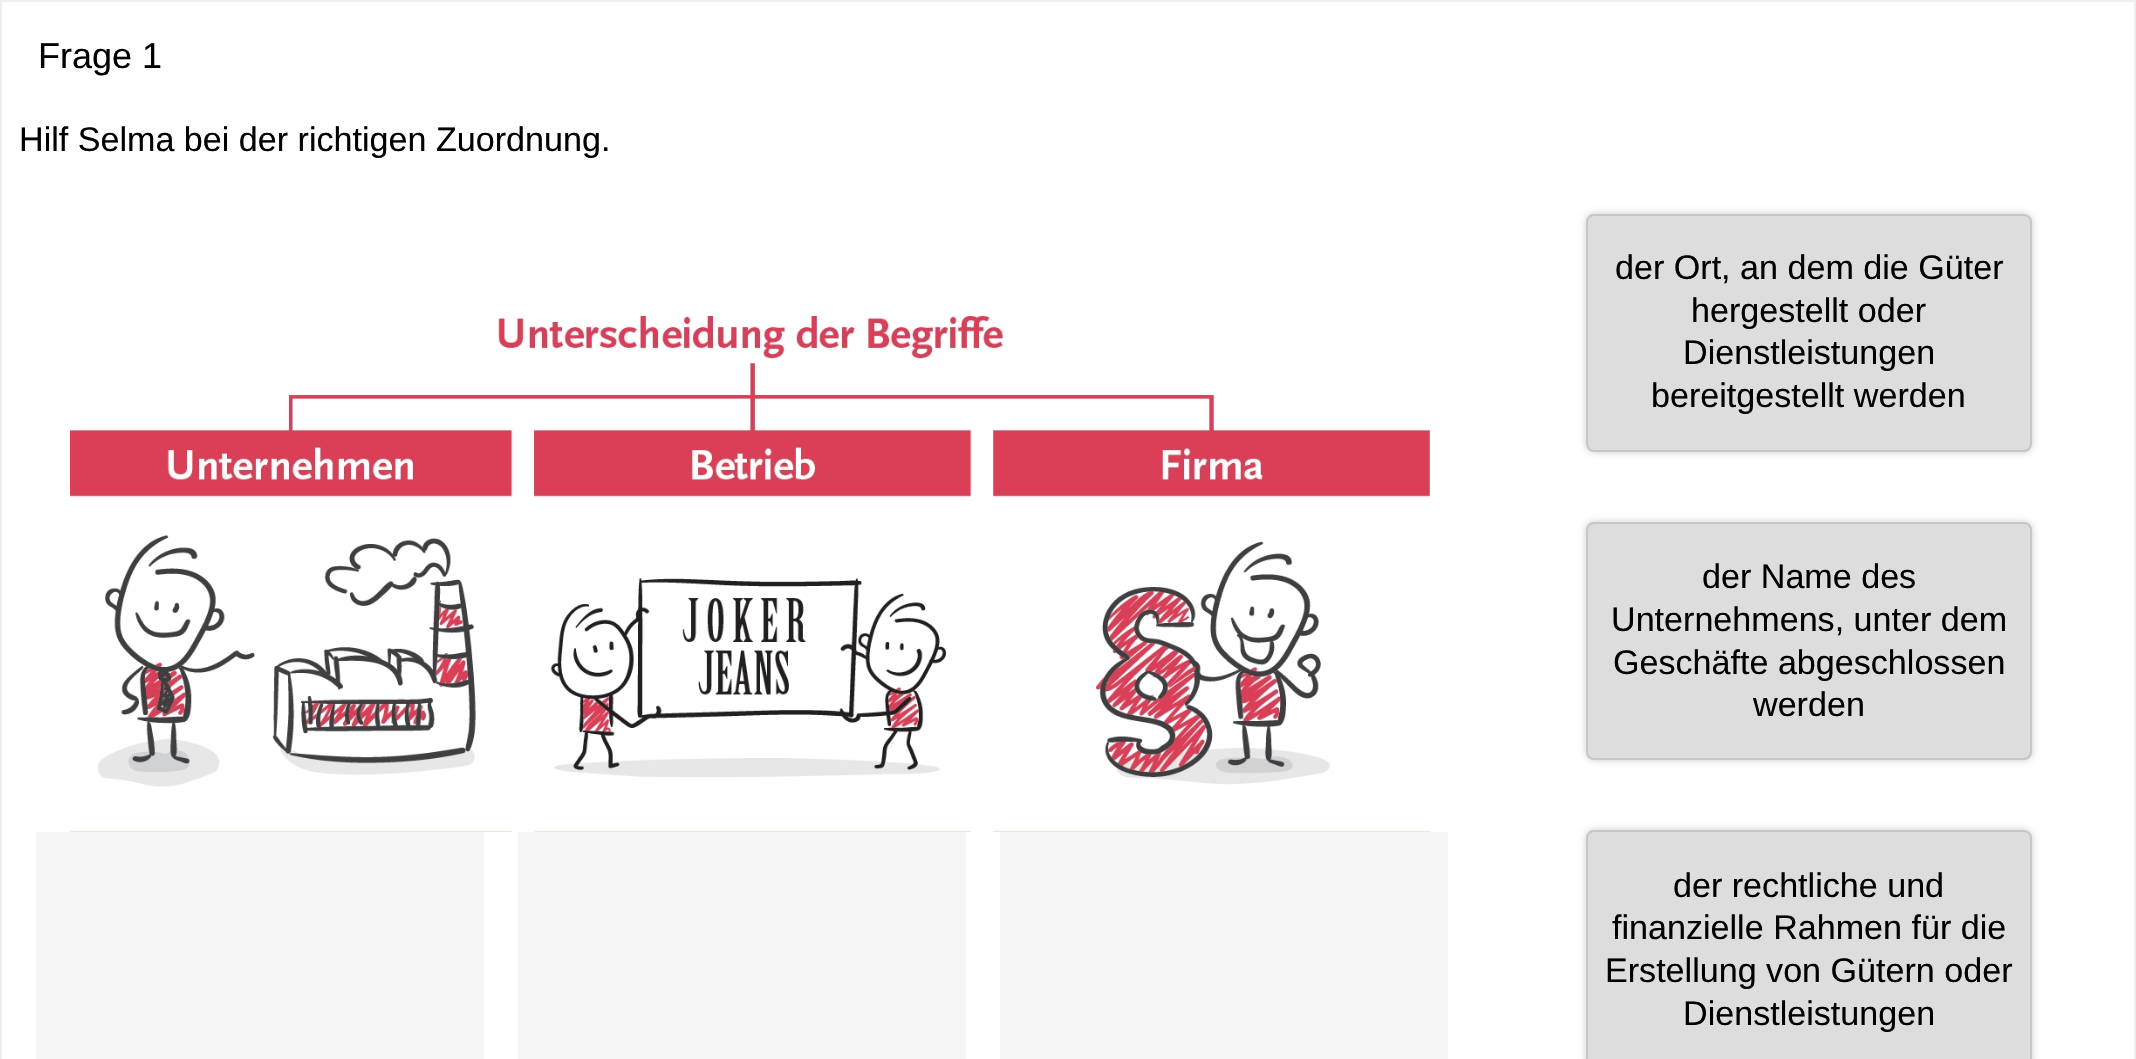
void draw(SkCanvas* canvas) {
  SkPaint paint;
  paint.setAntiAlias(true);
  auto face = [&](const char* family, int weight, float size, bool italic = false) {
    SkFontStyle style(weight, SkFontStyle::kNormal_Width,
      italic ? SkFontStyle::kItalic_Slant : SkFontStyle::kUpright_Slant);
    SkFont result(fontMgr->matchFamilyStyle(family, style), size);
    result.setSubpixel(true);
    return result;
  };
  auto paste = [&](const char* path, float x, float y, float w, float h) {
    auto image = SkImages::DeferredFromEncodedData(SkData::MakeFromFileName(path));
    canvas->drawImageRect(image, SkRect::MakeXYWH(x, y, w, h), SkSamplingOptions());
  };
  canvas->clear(0xffffffff);
  {
    const struct { float x, y, w, h; SkColor color; } items[] = {
      {0, 0, 2136, 2, 0xffeeeeee},
      {2134, 0, 2, 1059, 0xffeeeeee},
      {0, 0, 2, 1059, 0xffeeeeee},
    };
    for (auto [x, y, w, h, color] : items) {
      paint.setColor(color);
      canvas->drawRect(SkRect::MakeXYWH(x, y, w, h), paint);
    }
  }
  paste("img/1.png", 70, 316, 1360, 516);
  paint.setColor(0x33000000);
  paint.setMaskFilter(SkMaskFilter::MakeBlur(kNormal_SkBlurStyle, 3.5f));
  canvas->drawRoundRect(SkRect::MakeXYWH(1586, 214, 446, 238), 8, 8, paint);
  paint.setMaskFilter(nullptr);
  paint.setColor(0xffdddddd);
  canvas->drawRoundRect(SkRect::MakeXYWH(1587, 215, 444, 236), 7, 7, paint);
  paint.setStroke(true);
  paint.setStrokeWidth(2);
  paint.setColor(0xffc6c6c6);
  canvas->drawRoundRect(SkRect::MakeXYWH(1587, 215, 444, 236), 7, 7, paint);
  paint.setStroke(false);
  paint.setColor(0x33000000);
  paint.setMaskFilter(SkMaskFilter::MakeBlur(kNormal_SkBlurStyle, 3.5f));
  canvas->drawRoundRect(SkRect::MakeXYWH(1586, 522, 446, 238), 8, 8, paint);
  paint.setMaskFilter(nullptr);
  paint.setColor(0xffdddddd);
  canvas->drawRoundRect(SkRect::MakeXYWH(1587, 523, 444, 236), 7, 7, paint);
  paint.setStroke(true);
  paint.setColor(0xffc6c6c6);
  canvas->drawRoundRect(SkRect::MakeXYWH(1587, 523, 444, 236), 7, 7, paint);
  paint.setStroke(false);
  {
    const struct { float x, y, w, h; SkColor color; } items[] = {
      {36, 832, 448, 227, 0xfff5f5f5},
      {518, 832, 448, 227, 0xfff5f5f5},
      {1000, 832, 448, 227, 0xfff5f5f5},
    };
    for (auto [x, y, w, h, color] : items) {
      paint.setColor(color);
      canvas->drawRect(SkRect::MakeXYWH(x, y, w, h), paint);
    }
  }
  paint.setColor(0x33000000);
  paint.setMaskFilter(SkMaskFilter::MakeBlur(kNormal_SkBlurStyle, 3.5f));
  canvas->drawRoundRect(SkRect::MakeXYWH(1586, 830, 446, 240), 8, 8, paint);
  paint.setMaskFilter(nullptr);
  paint.setColor(0xffdddddd);
  canvas->drawRoundRect(SkRect::MakeXYWH(1587, 831, 444, 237), 7, 7, paint);
  paint.setStroke(true);
  paint.setColor(0xffc6c6c6);
  canvas->drawRoundRect(SkRect::MakeXYWH(1587, 831, 444, 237), 7, 7, paint);
  auto f0 = face("Liberation Sans", 400, 36);
  paint.setStroke(false);
  paint.setColor(0xff000000);
  canvas->drawString("Frage 1", 38, 68, f0, paint);
  auto f1 = face("Liberation Sans", 400, 34.1f);
  {
    const struct { const char* s; float x, y; } items[] = {
      {"Hilf Selma bei der richtigen Zuordnung.", 19, 151},
      {"der Ort, an dem die Güter", 1615, 279},
      {"hergestellt oder", 1691, 322},
      {"Dienstleistungen", 1683, 364},
      {"bereitgestellt werden", 1651, 407},
      {"der Name des", 1702, 588},
      {"Unternehmens, unter dem", 1611, 631},
      {"Geschäfte abgeschlossen", 1613, 674},
      {"werden", 1753, 716},
      {"der rechtliche und", 1673, 897},
      {"finanzielle Rahmen für die", 1612, 939},
      {"Erstellung von Gütern oder", 1605, 982},
      {"Dienstleistungen", 1683, 1025},
    };
    for (auto [s, x, y] : items) {
      canvas->drawString(s, x, y, f1, paint);
    }
  }
}
